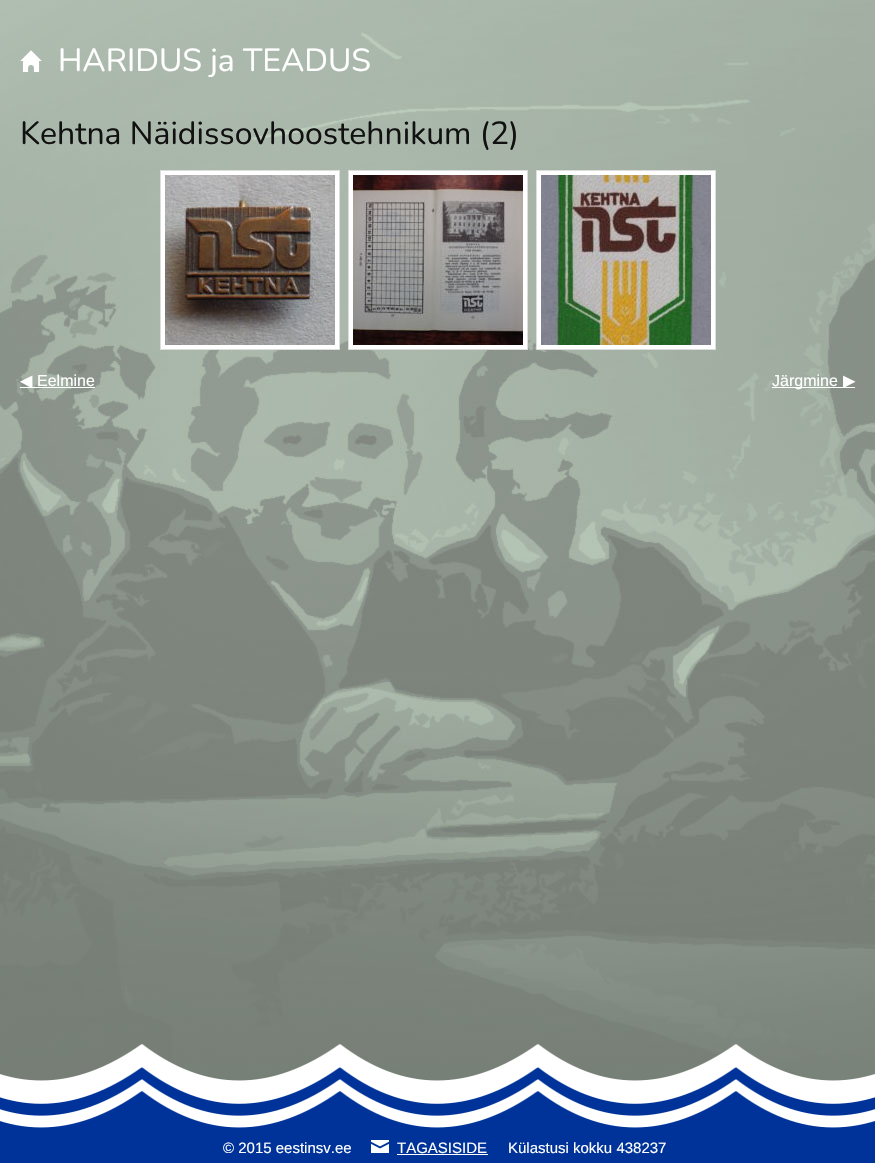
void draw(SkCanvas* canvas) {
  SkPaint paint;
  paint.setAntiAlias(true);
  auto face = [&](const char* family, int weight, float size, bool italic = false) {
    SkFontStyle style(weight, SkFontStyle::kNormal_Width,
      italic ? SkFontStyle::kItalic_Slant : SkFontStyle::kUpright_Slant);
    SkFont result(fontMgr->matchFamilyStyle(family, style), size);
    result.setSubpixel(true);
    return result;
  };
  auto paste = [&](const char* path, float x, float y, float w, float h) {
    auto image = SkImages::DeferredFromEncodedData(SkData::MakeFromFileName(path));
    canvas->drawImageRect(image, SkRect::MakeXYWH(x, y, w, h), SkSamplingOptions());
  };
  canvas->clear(0xffffffff);
  paste("img/1.png", 0, 0, 875, 1081);
  paste("img/2.png", 20, 50, 22, 22);
  paint.setStroke(true);
  paint.setStrokeWidth(1);
  paint.setColor(0xffdddddd);
  canvas->drawRect(SkRect::MakeXYWH(160.5f, 170.5f, 179, 179), paint);
  paint.setStroke(false);
  paint.setColor(0xffffffff);
  canvas->drawRect(SkRect::MakeXYWH(161, 171, 178, 178), paint);
  paste("img/3.png", 165, 175, 170, 170);
  paint.setStroke(true);
  paint.setColor(0xffdddddd);
  canvas->drawRect(SkRect::MakeXYWH(348.5f, 170.5f, 179, 179), paint);
  paint.setStroke(false);
  paint.setColor(0xffffffff);
  canvas->drawRect(SkRect::MakeXYWH(349, 171, 178, 178), paint);
  paste("img/4.png", 353, 175, 170, 170);
  paint.setStroke(true);
  paint.setColor(0xffdddddd);
  canvas->drawRect(SkRect::MakeXYWH(536.5f, 170.5f, 179, 179), paint);
  paint.setStroke(false);
  paint.setColor(0xffffffff);
  canvas->drawRect(SkRect::MakeXYWH(537, 171, 178, 178), paint);
  paste("img/5.png", 541, 175, 170, 170);
  canvas->drawRect(SkRect::MakeXYWH(20, 387, 75, 1), paint);
  canvas->drawRect(SkRect::MakeXYWH(772, 387, 83, 1), paint);
  paste("img/6.png", 0, 1044, 875, 119);
  paste("img/7.png", 371, 1140, 18, 13);
  canvas->drawRect(SkRect::MakeXYWH(397, 1154, 91, 1), paint);
  auto f0 = face("Nunito", 200, 32);
  canvas->drawString("HARIDUS ja TEADUS", 58, 71, f0, paint);
  paint.setColor(0xff111111);
  canvas->drawString("Kehtna Näidissovhoostehnikum (2)", 20, 144, f0, paint);
  auto f1 = face("DejaVu Sans", 400, 16);
  paint.setColor(0xffffffff);
  canvas->drawString("◀", 20, 386, f1, paint);
  auto f2 = face("Liberation Sans", 400, 16);
  canvas->drawString("Eelmine", 37, 386, f2, paint);
  canvas->drawString("Järgmine", 772, 386, f2, paint);
  canvas->drawString("▶", 843, 386, f1, paint);
  auto f3 = face("Liberation Sans", 400, 15);
  {
    const struct { const char* s; float x, y; } items[] = {
      {"© 2015 eestinsv.ee", 223, 1153},
      {"TAGASISIDE", 397, 1153},
      {"Külastusi kokku 438237", 508, 1153},
    };
    for (auto [s, x, y] : items) {
      canvas->drawString(s, x, y, f3, paint);
    }
  }
}
